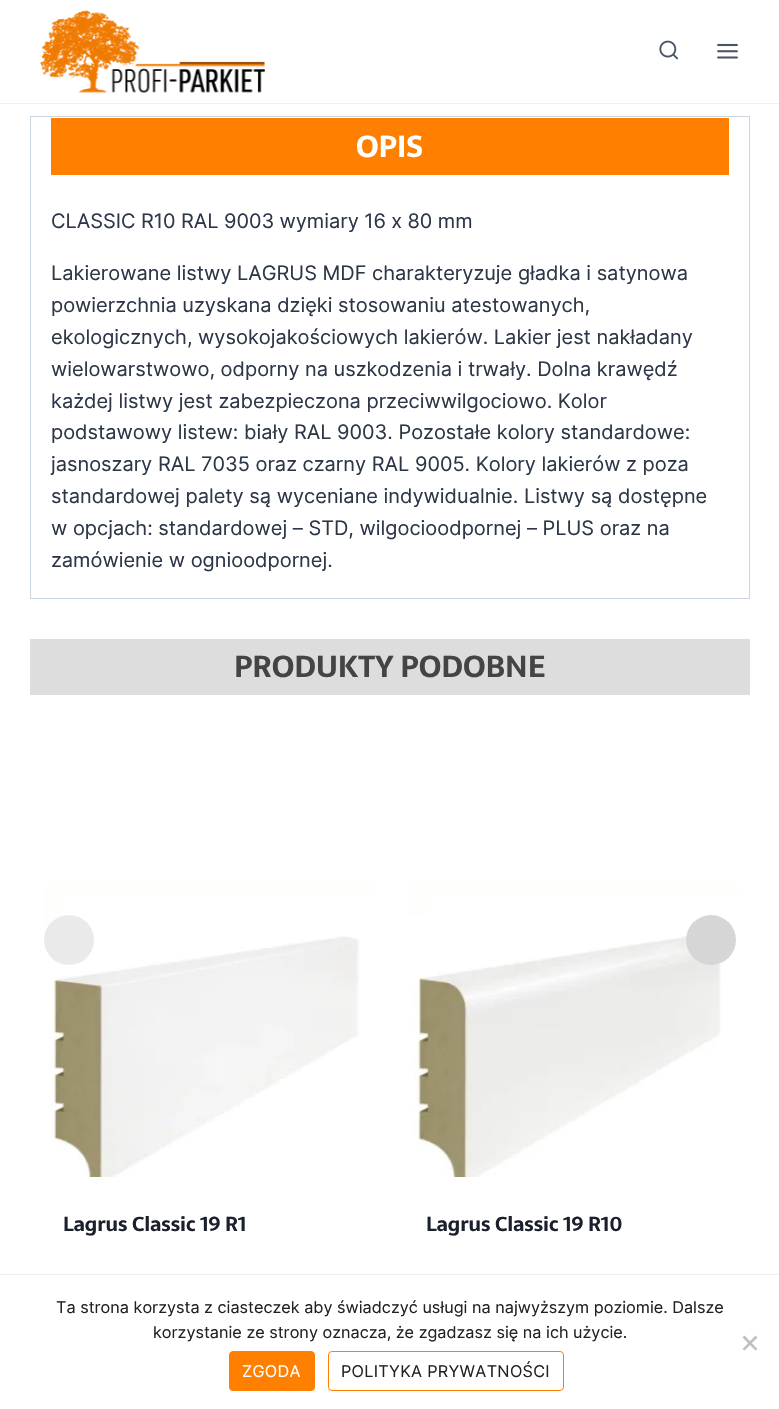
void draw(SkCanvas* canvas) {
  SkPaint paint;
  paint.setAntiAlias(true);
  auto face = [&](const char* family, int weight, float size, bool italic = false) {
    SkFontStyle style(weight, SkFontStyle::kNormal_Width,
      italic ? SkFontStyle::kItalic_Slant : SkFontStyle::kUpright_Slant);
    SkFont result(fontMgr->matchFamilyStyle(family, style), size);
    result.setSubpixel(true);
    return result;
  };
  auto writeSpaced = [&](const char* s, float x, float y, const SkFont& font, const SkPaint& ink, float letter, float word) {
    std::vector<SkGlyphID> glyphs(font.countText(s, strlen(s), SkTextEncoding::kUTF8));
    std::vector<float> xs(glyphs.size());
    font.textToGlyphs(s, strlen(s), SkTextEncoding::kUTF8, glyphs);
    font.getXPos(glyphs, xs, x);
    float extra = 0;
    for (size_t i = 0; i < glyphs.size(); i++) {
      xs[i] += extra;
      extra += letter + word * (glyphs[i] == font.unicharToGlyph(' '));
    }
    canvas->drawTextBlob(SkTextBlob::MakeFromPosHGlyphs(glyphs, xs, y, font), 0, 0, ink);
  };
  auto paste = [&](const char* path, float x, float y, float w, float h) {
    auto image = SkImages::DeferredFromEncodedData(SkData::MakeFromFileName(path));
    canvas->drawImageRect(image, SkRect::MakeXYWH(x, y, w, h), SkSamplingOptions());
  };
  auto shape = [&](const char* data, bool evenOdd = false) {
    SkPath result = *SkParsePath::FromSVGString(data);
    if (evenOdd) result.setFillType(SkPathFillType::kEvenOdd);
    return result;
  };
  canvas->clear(0xffffffff);
  paint.setColor(0xffeeeeee);
  canvas->drawRect(SkRect::MakeXYWH(0, 103, 779, 1), paint);
  paste("img/1.png", 40, 10, 225, 83);
  paste("img/2.png", 659, 40, 20, 20);
  paste("img/3.png", 717, 43, 21, 16);
  paint.setStroke(true);
  paint.setStrokeWidth(1);
  paint.setColor(0xffcbd5e0);
  canvas->drawRect(SkRect::MakeXYWH(30.5f, 116.5f, 719, 482), paint);
  paint.setStroke(false);
  paint.setColor(0xffff7f00);
  canvas->drawRect(SkRect::MakeXYWH(51, 118, 678, 57), paint);
  paint.setColor(0xffdddddd);
  canvas->drawRect(SkRect::MakeXYWH(30, 639, 720, 56), paint);
  paste("img/4.png", 44, 883, 330, 294);
  paint.setColor(0xffeaeaea);
  canvas->drawCircle(69, 940, 25, paint);
  paste("img/5.png", 408, 883, 330, 294);
  paint.setColor(0xffd6d6d6);
  canvas->drawCircle(711, 940, 25, paint);
  paint.setColor(0xffeeeeee);
  canvas->drawRect(SkRect::MakeXYWH(0, 1274, 779, 1), paint);
  paint.setColor(0xffc0c0c0);
  canvas->drawPath(shape("M755.5 1335.5L757.5 1337.5L744.5 1350.5L742.5 1349Z"), paint);
  canvas->drawPath(shape("M742.5 1337.5L744.5 1335.5L757.5 1349L755.5 1350.5Z"), paint);
  paint.setColor(0xffff7f00);
  canvas->drawRoundRect(SkRect::MakeXYWH(229.5f, 1351.5f, 85, 39), 3.5f, 3.5f, paint);
  paint.setStroke(true);
  canvas->drawRoundRect(SkRect::MakeXYWH(229.5f, 1351.5f, 85, 39), 3.5f, 3.5f, paint);
  canvas->drawRoundRect(SkRect::MakeXYWH(328.5f, 1351.5f, 235, 39), 3.5f, 3.5f, paint);
  auto f0 = face("Sarala", 700, 30);
  paint.setStroke(false);
  paint.setColor(0xffffffff);
  canvas->drawString("OPIS", 356, 157, f0, paint);
  auto f1 = face("Inter", 400, 20);
  paint.setColor(0xff2d3748);
  writeSpaced("CLASSIC R10 RAL 9003 wymiary 16 x 80 mm", 51, 228, f1, paint, 0, -0.25f);
  {
    const struct { const char* s; float x, y; } items[] = {
      {"Lakierowane listwy LAGRUS MDF charakteryzuje gładka i satynowa", 51, 280},
      {"powierzchnia uzyskana dzięki stosowaniu atestowanych,", 51, 312},
      {"ekologicznych, wysokojakościowych lakierów. Lakier jest nakładany", 51, 344},
      {"wielowarstwowo, odporny na uszkodzenia i trwały. Dolna krawędź", 51, 376},
      {"każdej listwy jest zabezpieczona przeciwwilgociowo. Kolor", 51, 408},
      {"podstawowy listew: biały RAL 9003. Pozostałe kolory standardowe:", 51, 439},
      {"jasnoszary RAL 7035 oraz czarny RAL 9005. Kolory lakierów z poza", 51, 471},
      {"standardowej palety są wyceniane indywidualnie. Listwy są dostępne", 51, 503},
      {"w opcjach: standardowej – STD, wilgocioodpornej – PLUS oraz na", 51, 535},
      {"zamówienie w ognioodpornej.", 51, 567},
    };
    for (auto [s, x, y] : items) {
      canvas->drawString(s, x, y, f1, paint);
    }
  }
  paint.setColor(0xff444444);
  canvas->drawString("PRODUKTY PODOBNE", 234, 677, f0, paint);
  auto f2 = face("Sarala", 700, 20);
  paint.setColor(0xff1a202c);
  canvas->drawString("Lagrus Classic 19 R1", 63, 1231, f2, paint);
  canvas->drawString("Lagrus Classic 19 R10", 426, 1231, f2, paint);
  auto f3 = face("Inter", 400, 16.25f);
  paint.setColor(0xff222222);
  canvas->drawString("Ta strona korzysta z ciasteczek aby świadczyć usługi na najwyższym poziomie. Dalsze", 56, 1313, f3, paint);
  canvas->drawString("korzystanie ze strony oznacza, że zgadzasz się na ich użycie.", 153, 1338, f3, paint);
  paint.setColor(0xffffffff);
  writeSpaced("ZGODA", 242, 1377, f3, paint, 0.3f, 0);
  paint.setColor(0xff222222);
  writeSpaced("POLITYKA PRYWATNOŚCI", 341, 1377, f3, paint, 0.3f, 0);
}
